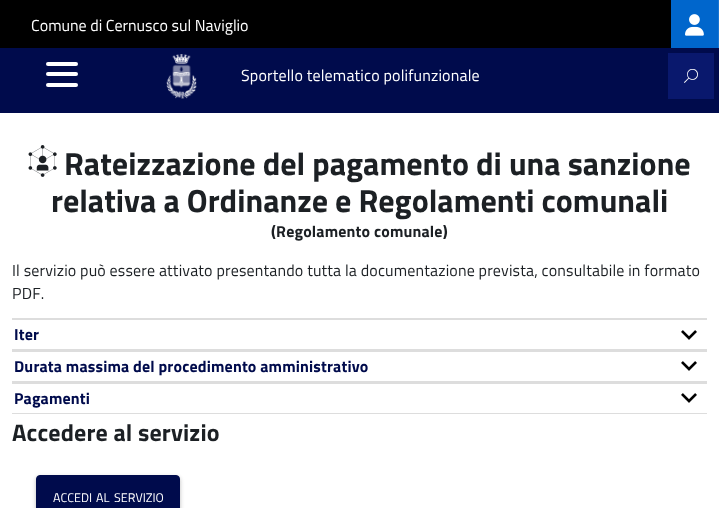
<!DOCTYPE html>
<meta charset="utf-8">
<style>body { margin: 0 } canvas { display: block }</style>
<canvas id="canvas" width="719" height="508"></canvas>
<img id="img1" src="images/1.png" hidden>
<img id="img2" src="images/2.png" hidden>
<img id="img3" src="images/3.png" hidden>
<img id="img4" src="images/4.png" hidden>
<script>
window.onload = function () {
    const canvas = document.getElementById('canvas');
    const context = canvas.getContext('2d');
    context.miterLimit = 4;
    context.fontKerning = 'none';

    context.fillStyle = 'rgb(255, 255, 255)';
    context.fillRect(0, 0, 719, 508);
    context.fillStyle = 'rgb(0, 0, 0)';
    context.fillRect(0, 0, 671, 48);
    context.fillStyle = 'rgb(0, 102, 204)';
    context.fillRect(671, 0, 47, 48);
    context.fillStyle = 'rgb(26, 117, 209)';
    context.fillRect(718, 0, 1, 48);
    context.drawImage(document.getElementById('img1'), 685, 14, 19, 22);
    context.fillStyle = 'rgb(0, 11, 76)';
    context.fillRect(0, 48, 719, 65);
    context.fillStyle = 'rgb(255, 255, 255)';
    context.beginPath();
    context.roundRect(46, 72, 32, 4, 2);
    context.fill();
    context.beginPath();
    context.roundRect(46, 62, 32, 4, 2);
    context.fill();
    context.beginPath();
    context.roundRect(46, 83, 32, 4, 2);
    context.fill();
    context.drawImage(document.getElementById('img2'), 166, 54, 31, 45);
    context.fillStyle = 'rgb(9, 24, 109)';
    context.fillRect(668, 53, 46, 46);
    context.drawImage(document.getElementById('img3'), 28, 145, 29, 32);
    context.fillStyle = 'rgb(221, 221, 221)';
    context.fillRect(12, 318, 695, 2);
    context.fillRect(12, 349, 695, 3);
    context.drawImage(document.getElementById('img4'), 681, 330, 16, 10);
    context.fillRect(12, 381, 695, 3);
    context.drawImage(document.getElementById('img4'), 681, 361, 16, 10);
    context.fillRect(12, 413, 695, 1);
    context.drawImage(document.getElementById('img4'), 681, 393, 16, 10);
    context.fillStyle = 'rgb(189, 189, 189)';
    context.filter = 'blur(2px)';
    context.beginPath();
    context.roundRect(36, 477, 144, 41, 4);
    context.fill();
    context.filter = 'none';
    context.fillStyle = 'rgb(0, 11, 76)';
    context.beginPath();
    context.roundRect(36.5, 475.5, 143, 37, 3.5);
    context.fill();
    context.strokeStyle = 'rgb(0, 11, 76)';
    context.stroke();
    context.font = '16px Titillium Web';
    context.fillStyle = 'rgb(255, 255, 255)';
    context.fillText('Comune di Cernusco sul Naviglio', 31, 31);
    context.letterSpacing = '0.16px';
    context.fillText('Sportello telematico polifunzionale', 241, 81);
    context.letterSpacing = '0px';
    context.font = '14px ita';
    context.fillText('🔍', 684, 82);
    context.font = 'bold 32px Titillium Web';
    context.fillStyle = 'rgb(28, 32, 36)';
    context.fillText('Rateizzazione del pagamento di una sanzione', 64, 175);
    context.fillText('relativa a Ordinanze e Regolamenti comunali', 51, 212);
    context.letterSpacing = '0.16px';
    context.font = 'bold 16px Titillium Web';
    context.fillText('(Regolamento comunale)', 271, 237);
    context.font = '16px Titillium Web';
    context.fillText('Il servizio può essere attivato presentando tutta la documentazione prevista, consultabile in formato', 12, 276);
    context.fillText('PDF.', 12, 299);
    context.font = 'bold 16px Titillium Web';
    context.fillStyle = 'rgb(0, 11, 76)';
    context.fillText('Iter', 14, 340);
    context.fillText('Durata massima del procedimento amministrativo', 14, 372);
    context.fillText('Pagamenti', 14, 404);
    context.font = 'bold 24px Titillium Web';
    context.fillStyle = 'rgb(28, 32, 36)';
    context.fillText('Accedere al servizio', 12, 441);
    context.letterSpacing = '0px';
    context.font = '12.5px Titillium Web';
    context.fillStyle = 'rgb(255, 255, 255)';
    context.fillText('ACCEDI', 53, 502);
    context.fillText('AL', 96, 502);
    context.fillText('SERVIZIO', 114, 502);
};
</script>
